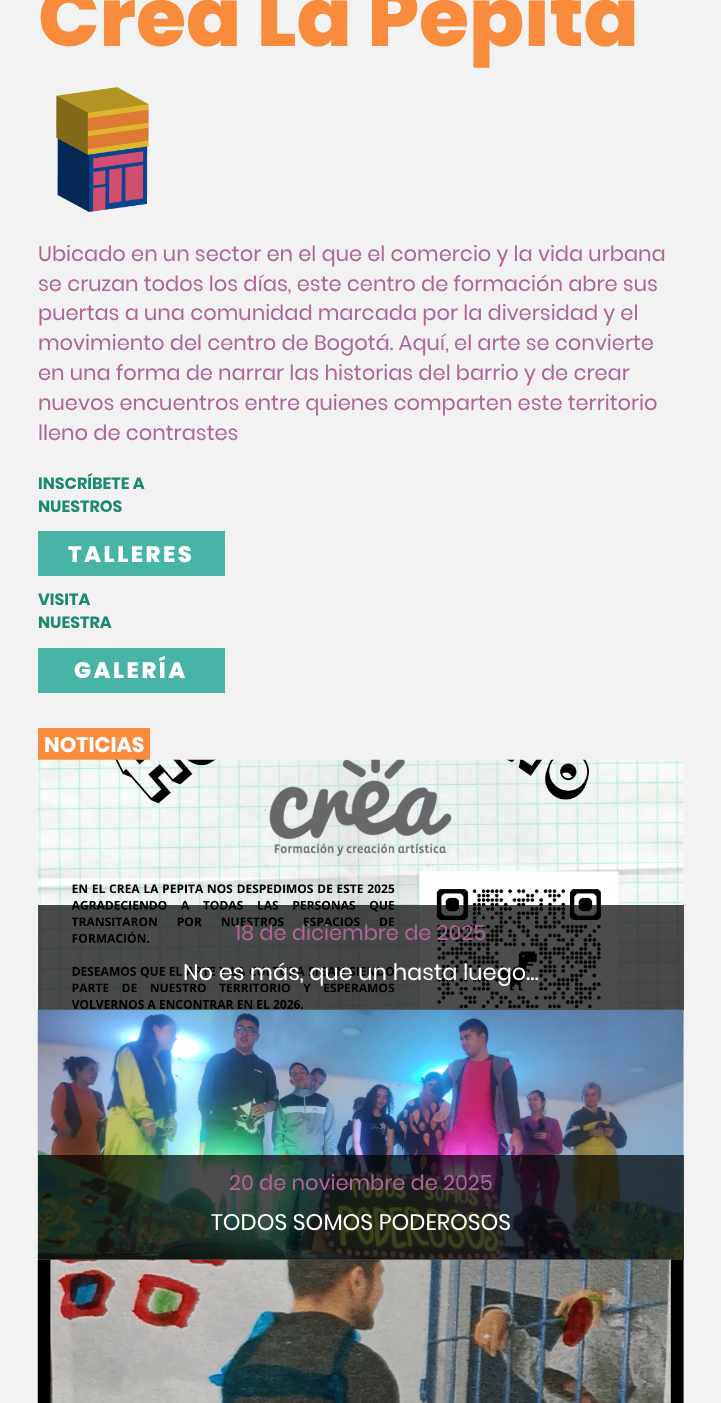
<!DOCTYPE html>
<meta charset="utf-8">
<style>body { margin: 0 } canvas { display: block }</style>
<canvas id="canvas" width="721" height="1403"></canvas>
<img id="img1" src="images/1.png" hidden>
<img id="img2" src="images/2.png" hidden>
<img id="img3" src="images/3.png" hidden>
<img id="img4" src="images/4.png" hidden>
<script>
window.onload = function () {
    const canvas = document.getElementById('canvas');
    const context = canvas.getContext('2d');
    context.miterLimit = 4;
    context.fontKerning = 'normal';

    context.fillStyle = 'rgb(242, 242, 242)';
    context.fillRect(0, 0, 721, 1403);
    context.drawImage(document.getElementById('img1'), 56, 87, 93, 125);
    context.fillStyle = 'rgb(71, 180, 165)';
    context.fillRect(38, 531, 187, 45);
    context.fillRect(38, 648, 187, 45);
    context.fillStyle = 'rgb(249, 140, 60)';
    context.fillRect(38, 728, 112, 32);
    context.drawImage(document.getElementById('img2'), 37, 759, 647, 251);
    context.fillStyle = 'rgba(0, 0, 0, 0.7)';
    context.fillRect(38, 905, 646, 105);
    context.drawImage(document.getElementById('img3'), 37, 1009, 647, 251);
    context.fillRect(38, 1155, 646, 105);
    context.drawImage(document.getElementById('img4'), 37, 1259, 647, 144);
    context.font = '800 81.25px Poppins';
    context.fillStyle = 'rgb(249, 140, 60)';
    context.fillText('Crea La Pepita', 38, 46);
    context.font = '21px Poppins';
    context.fillStyle = 'rgb(174, 102, 151)';
    context.fillText('Ubicado en un sector en el que el comercio y la vida urbana', 38, 261);
    context.fillText('se cruzan todos los días, este centro de formación abre sus', 38, 291);
    context.fillText('puertas a una comunidad marcada por la diversidad y el', 38, 320);
    context.fillText('movimiento del centro de Bogotá. Aquí, el arte se convierte', 38, 350);
    context.fillText('en una forma de narrar las historias del barrio y de crear', 38, 380);
    context.fillText('nuevos encuentros entre quienes comparten este territorio', 38, 410);
    context.fillText('lleno de contrastes', 38, 440);
    context.font = 'bold 16.25px Poppins';
    context.fillStyle = 'rgb(30, 137, 113)';
    context.fillText('INSCRÍBETE A', 38, 489);
    context.fillText('NUESTROS', 38, 512);
    context.letterSpacing = '2.5px';
    context.font = '800 22.5px Poppins';
    context.fillStyle = 'rgb(255, 255, 255)';
    context.fillText('TALLERES', 68, 562);
    context.letterSpacing = '0px';
    context.font = 'bold 16.25px Poppins';
    context.fillStyle = 'rgb(30, 137, 113)';
    context.fillText('VISITA', 38, 605);
    context.fillText('NUESTRA', 38, 628);
    context.letterSpacing = '2.5px';
    context.font = '800 22.5px Poppins';
    context.fillStyle = 'rgb(255, 255, 255)';
    context.fillText('GALERÍA', 74, 678);
    context.letterSpacing = '0px';
    context.font = 'bold 21px Poppins';
    context.fillText('NOTICIAS', 44, 752);
    context.font = '21px Poppins';
    context.fillStyle = 'rgb(174, 102, 151)';
    context.fillText('18 de diciembre de 2025', 235, 940);
    context.font = '22.5px Poppins';
    context.fillStyle = 'rgb(255, 255, 255)';
    context.fillText('No es más, que un hasta luego…', 183, 980);
    context.font = '21px Poppins';
    context.fillStyle = 'rgb(174, 102, 151)';
    context.fillText('20 de noviembre de 2025', 229, 1190);
    context.font = '22.5px Poppins';
    context.fillStyle = 'rgb(255, 255, 255)';
    context.fillText('TODOS SOMOS PODEROSOS', 211, 1230);
};
</script>
